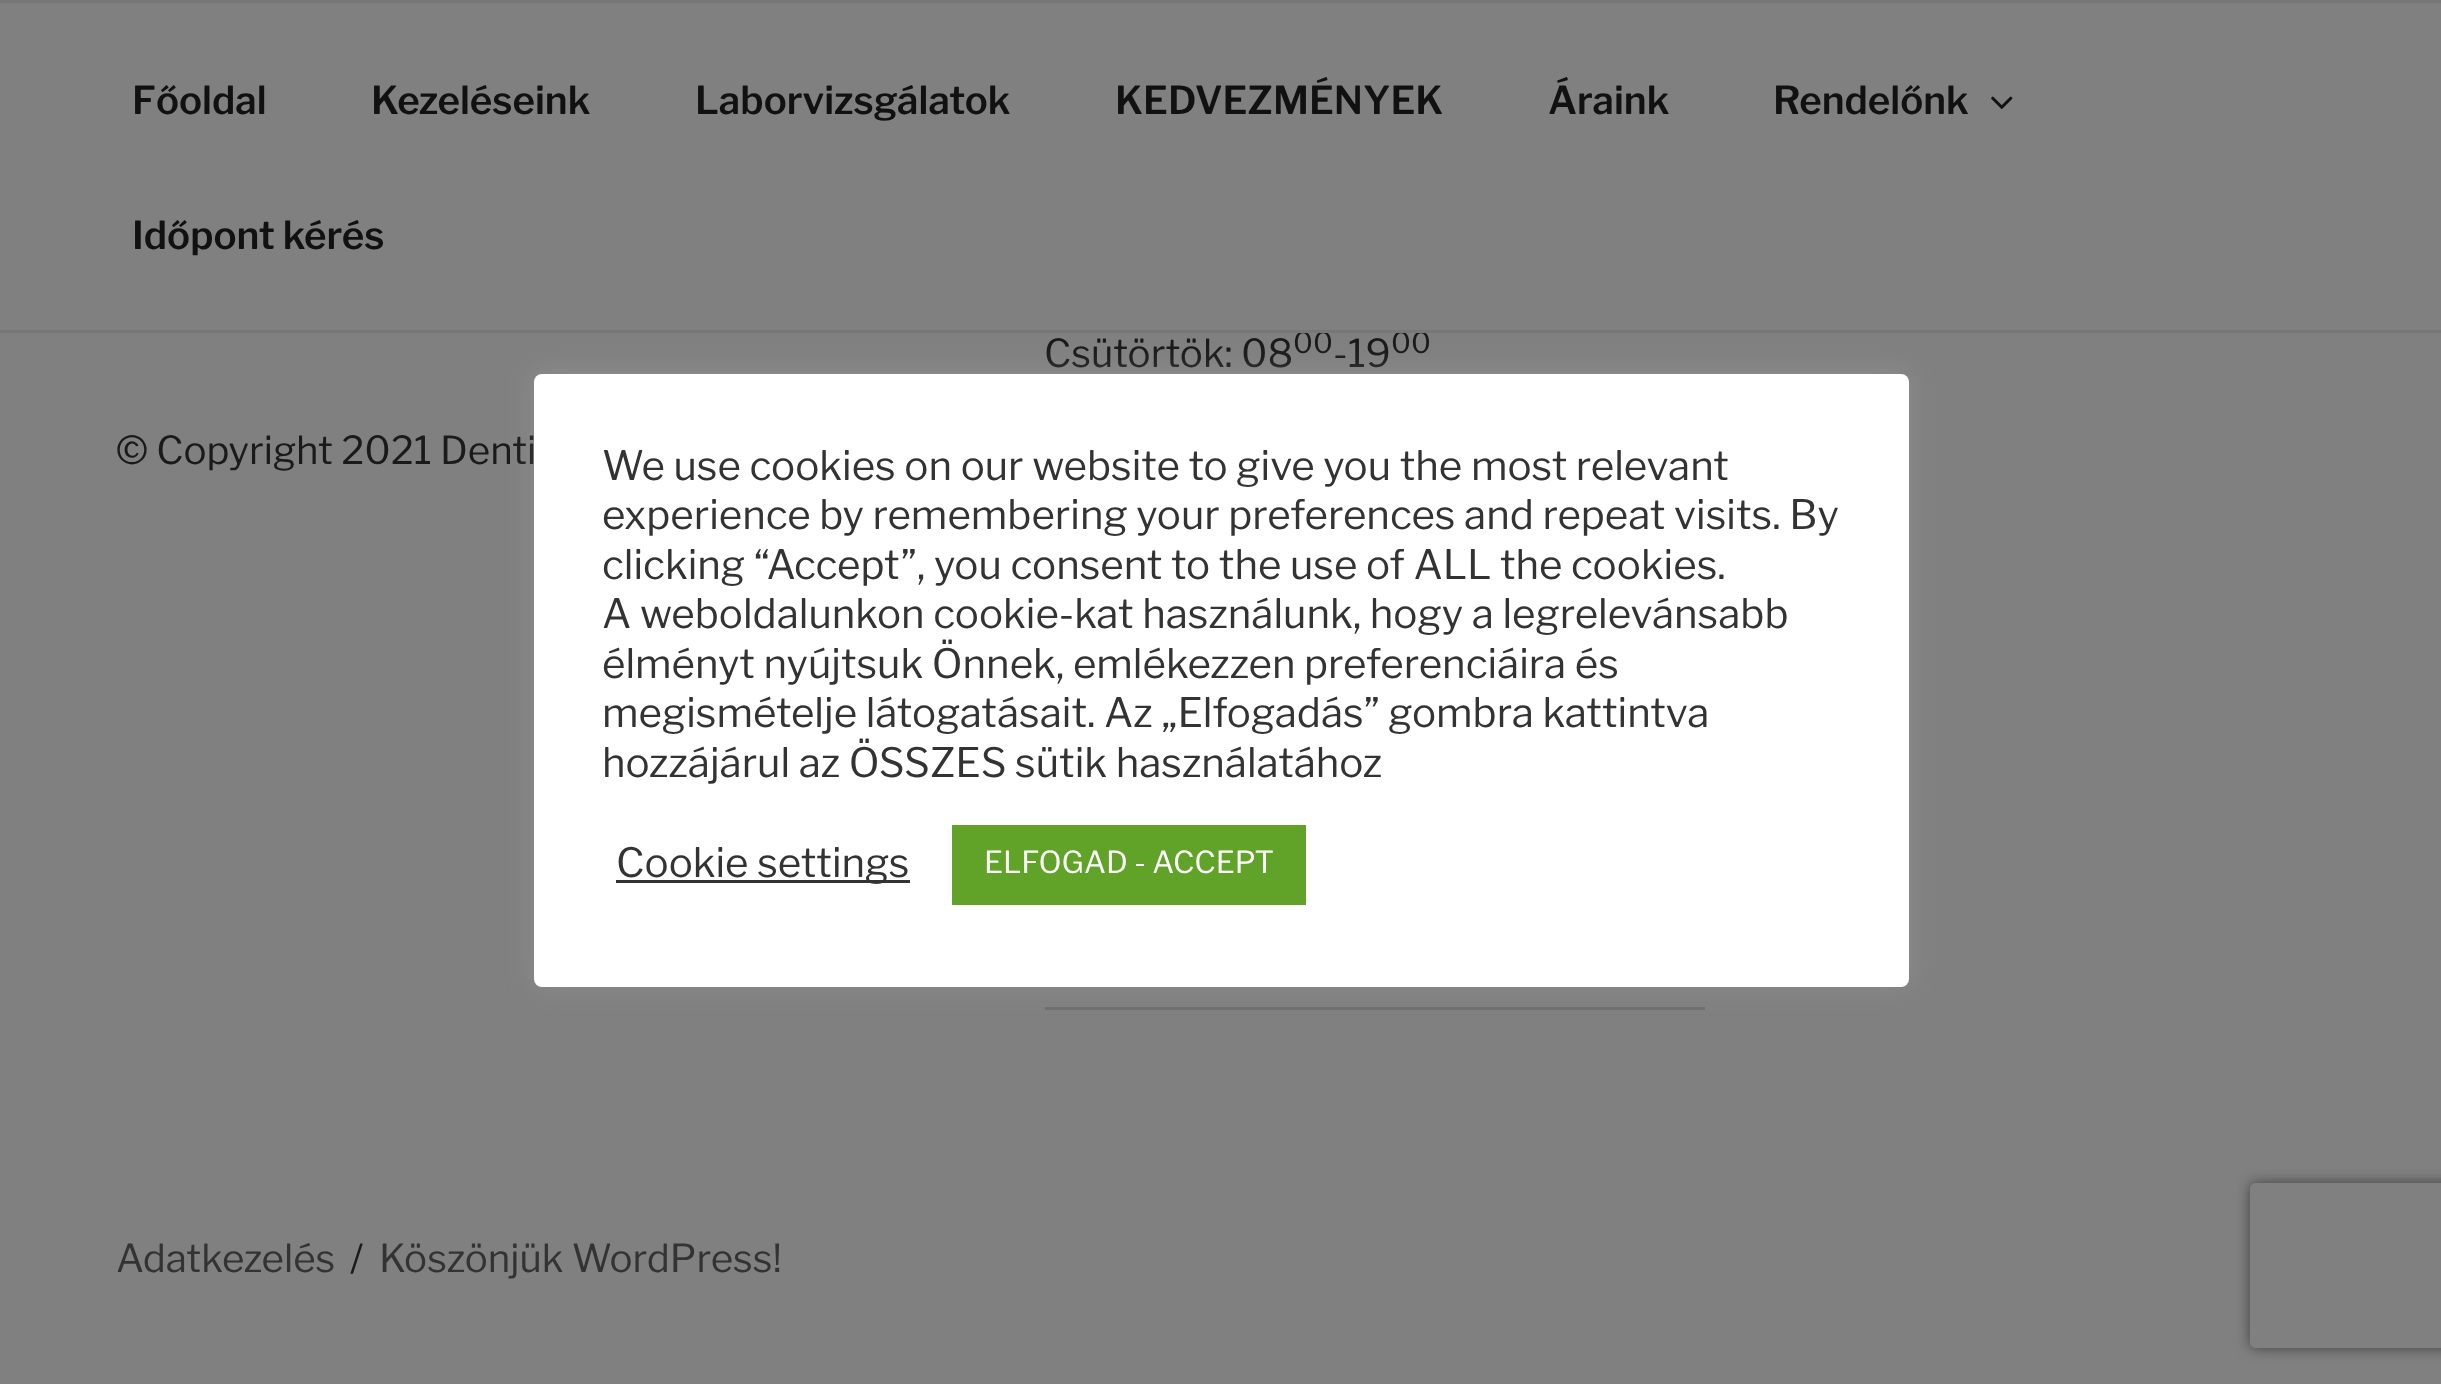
<!DOCTYPE html>
<meta charset="utf-8">
<style>body { margin: 0 } canvas { display: block }</style>
<canvas id="canvas" width="2441" height="1384"></canvas>
<img id="img1" src="images/1.png" hidden>
<script>
window.onload = function () {
    const canvas = document.getElementById('canvas');
    const context = canvas.getContext('2d');
    context.miterLimit = 4;
    context.fontKerning = 'normal';

    context.fillStyle = 'rgb(128, 128, 128)';
    context.fillRect(0, 0, 2441, 1384);
    context.fillStyle = 'rgb(119, 119, 119)';
    context.fillRect(0, 0, 2441, 3);
    context.drawImage(document.getElementById('img1'), 1991, 96, 22, 13);
    context.fillStyle = 'rgb(111, 111, 111)';
    context.fillRect(1045, 1007, 660, 3);
    context.save();
    context.beginPath();
    context.moveTo(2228, 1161);
    context.lineTo(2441, 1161);
    context.lineTo(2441, 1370);
    context.lineTo(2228, 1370);
    context.closePath();
    context.moveTo(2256, 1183);
    context.lineTo(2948, 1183);
    context.bezierCurveTo(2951.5, 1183, 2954, 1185.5, 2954, 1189);
    context.lineTo(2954, 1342);
    context.bezierCurveTo(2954, 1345.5, 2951.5, 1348, 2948, 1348);
    context.lineTo(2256, 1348);
    context.bezierCurveTo(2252.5, 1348, 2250, 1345.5, 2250, 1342);
    context.lineTo(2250, 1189);
    context.bezierCurveTo(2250, 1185.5, 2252.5, 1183, 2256, 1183);
    context.closePath();
    context.clip('evenodd');
    context.fillStyle = 'rgb(64, 64, 64)';
    context.filter = 'blur(7px)';
    context.beginPath();
    context.roundRect(2250, 1183, 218, 165, 6);
    context.fill();
    context.filter = 'none';
    context.restore();
    context.font = '100 38.5px "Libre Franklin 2"';
    context.fillStyle = 'rgb(17, 17, 17)';
    context.fillText('Főoldal', 132, 114);
    context.fillText('Kezeléseink', 371, 114);
    context.fillText('Laborvizsgálatok', 695, 114);
    context.fillText('KEDVEZMÉNYEK', 1115, 114);
    context.fillText('Áraink', 1548, 114);
    context.fillText('Rendelőnk', 1773, 114);
    context.fillText('Időpont kérés', 132, 249);
    context.font = '100 38.5px Libre Franklin';
    context.fillStyle = 'rgb(26, 26, 26)';
    context.fillText('Csütörtök: 08', 1044, 367);
    context.font = '100 29px Libre Franklin';
    context.fillText('00', 1293, 353);
    context.font = '100 38.5px Libre Franklin';
    context.fillText('-19', 1333, 367);
    context.font = '100 29px Libre Franklin';
    context.fillText('00', 1391, 353);
    context.fillStyle = 'rgb(119, 119, 119)';
    context.fillRect(0, 330, 2441, 3);
    context.font = '100 38.5px Libre Franklin';
    context.fillStyle = 'rgb(26, 26, 26)';
    context.fillText('© Copyright 2021 Denti', 116, 464);
    context.fillStyle = 'rgb(51, 51, 51)';
    context.fillText('Adatkezelés', 116, 1272);
    context.fillStyle = 'rgb(26, 26, 26)';
    context.fillText('/', 350, 1272);
    context.fillStyle = 'rgb(51, 51, 51)';
    context.fillText('Köszönjük WordPress!', 379, 1272);
    context.fillStyle = 'rgba(172, 171, 171, 0.3)';
    context.filter = 'blur(14px)';
    context.beginPath();
    context.roundRect(534, 371, 1375, 614, 8);
    context.fill();
    context.filter = 'none';
    context.fillStyle = 'rgb(255, 255, 255)';
    context.beginPath();
    context.roundRect(534, 374, 1375, 613, 8);
    context.fill();
    context.font = '100 40.3px Libre Franklin';
    context.fillStyle = 'rgb(51, 51, 51)';
    context.fillText('We use cookies on our website to give you the most relevant', 602, 480);
    context.fillText('experience by remembering your preferences and repeat visits. By', 602, 529);
    context.fillText('clicking “Accept”, you consent to the use of ALL the cookies.', 602, 579);
    context.fillText('A weboldalunkon cookie-kat használunk, hogy a legrelevánsabb', 602, 628);
    context.fillText('élményt nyújtsuk Önnek, emlékezzen preferenciáira és', 602, 678);
    context.fillText('megismételje látogatásait. Az „Elfogadás” gombra kattintva', 602, 727);
    context.fillText('hozzájárul az ÖSSZES sütik használatához', 602, 777);
    context.fillRect(616, 880, 294, 3);
    context.fillText('Cookie settings', 616, 877);
    context.fillStyle = 'rgb(97, 162, 41)';
    context.fillRect(952, 825, 354, 80);
    context.font = '100 30.25px Libre Franklin';
    context.fillStyle = 'rgb(255, 255, 255)';
    context.fillText('ELFOGAD - ACCEPT', 984, 873);
};
</script>
